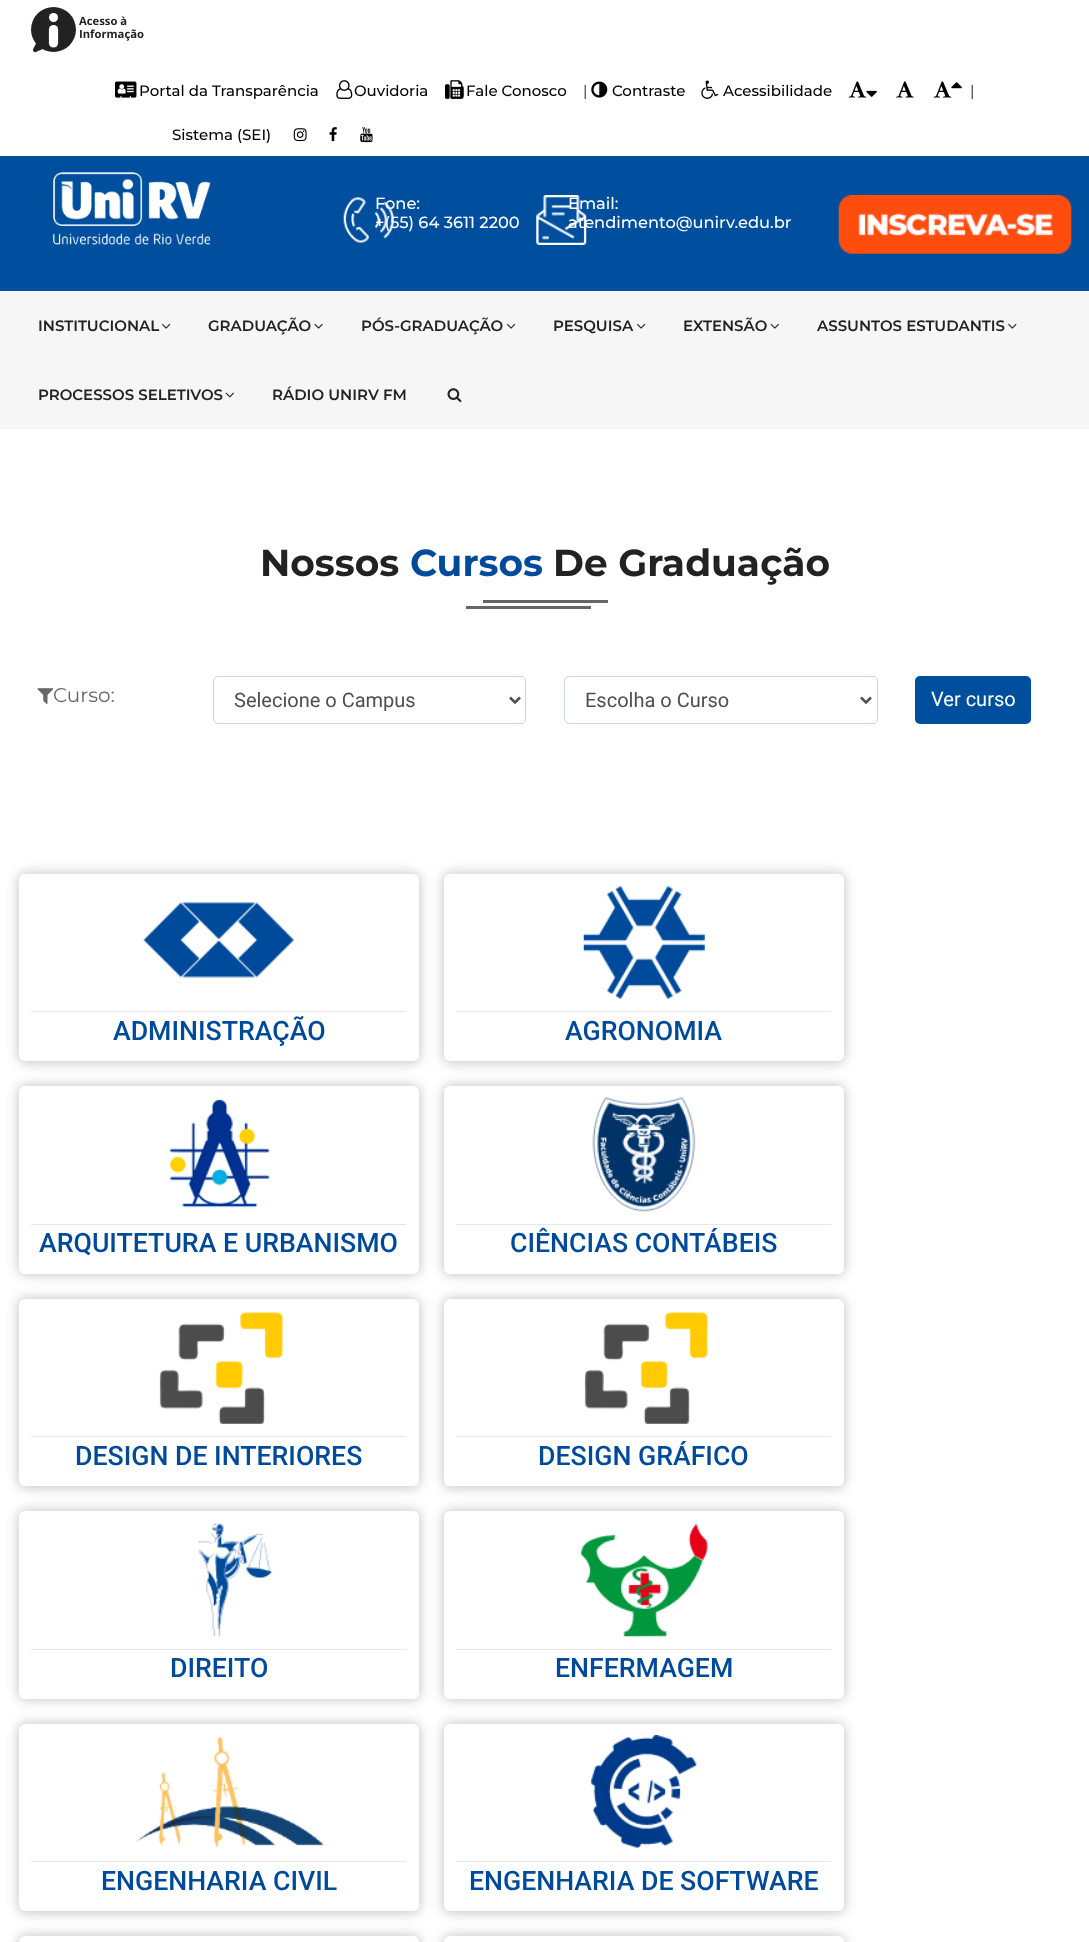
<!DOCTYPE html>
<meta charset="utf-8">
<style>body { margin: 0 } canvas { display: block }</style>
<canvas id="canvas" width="1089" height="1942"></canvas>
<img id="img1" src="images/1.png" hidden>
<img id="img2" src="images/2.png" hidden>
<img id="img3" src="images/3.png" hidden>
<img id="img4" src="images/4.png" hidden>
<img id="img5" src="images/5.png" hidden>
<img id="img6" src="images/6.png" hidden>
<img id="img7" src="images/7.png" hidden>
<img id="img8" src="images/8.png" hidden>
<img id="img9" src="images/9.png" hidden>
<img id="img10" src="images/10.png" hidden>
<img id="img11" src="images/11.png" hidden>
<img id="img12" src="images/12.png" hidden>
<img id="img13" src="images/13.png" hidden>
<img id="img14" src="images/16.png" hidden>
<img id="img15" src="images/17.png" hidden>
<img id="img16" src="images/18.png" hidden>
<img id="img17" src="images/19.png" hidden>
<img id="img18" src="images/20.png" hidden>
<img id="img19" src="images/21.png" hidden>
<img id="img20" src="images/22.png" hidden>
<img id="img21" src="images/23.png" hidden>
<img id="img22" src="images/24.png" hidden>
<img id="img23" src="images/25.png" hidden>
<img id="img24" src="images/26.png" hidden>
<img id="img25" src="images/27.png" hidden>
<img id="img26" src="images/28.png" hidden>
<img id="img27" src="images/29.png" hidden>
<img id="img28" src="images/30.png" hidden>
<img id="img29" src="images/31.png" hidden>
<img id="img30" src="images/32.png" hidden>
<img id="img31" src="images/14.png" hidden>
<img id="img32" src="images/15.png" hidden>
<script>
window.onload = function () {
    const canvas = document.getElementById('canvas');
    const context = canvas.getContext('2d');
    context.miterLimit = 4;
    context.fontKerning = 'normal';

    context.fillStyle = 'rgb(255, 255, 255)';
    context.fillRect(0, 0, 1089, 1942);
    context.fillStyle = 'rgb(0, 79, 159)';
    context.fillRect(0, 156, 1089, 135);
    context.fillStyle = 'rgb(34, 34, 34)';
    context.beginPath();
    context.arc(53.5, 29.5, 22.5, 0, 2 * Math.PI);
    context.fill();
    context.fillStyle = 'rgb(255, 255, 255)';
    context.beginPath();
    context.arc(53.5, 17.5, 4.5, 0, 2 * Math.PI);
    context.fill();
    context.beginPath();
    context.moveTo(53.5, 29.5);
    context.lineTo(53.5, 43);
    context.strokeStyle = 'rgb(255, 255, 255)';
    context.lineWidth = 9.2;
    context.lineCap = 'round';
    context.stroke();
    context.beginPath();
    context.moveTo(35, 50);
    context.lineTo(38, 44);
    context.lineTo(42, 47);
    context.closePath();
    context.strokeStyle = 'rgb(34, 34, 34)';
    context.lineWidth = 4.1;
    context.lineCap = 'butt';
    context.lineJoin = 'round';
    context.stroke();
    context.drawImage(document.getElementById('img1'), 115, 81, 22, 17);
    context.drawImage(document.getElementById('img2'), 336, 80, 17, 19);
    context.drawImage(document.getElementById('img3'), 445, 80, 19, 19);
    context.drawImage(document.getElementById('img4'), 591, 81, 17, 17);
    context.drawImage(document.getElementById('img5'), 701, 80, 18, 19);
    context.drawImage(document.getElementById('img6'), 848, 81, 19, 17);
    context.drawImage(document.getElementById('img7'), 866, 90, 11, 7);
    context.drawImage(document.getElementById('img8'), 896, 81, 18, 17);
    context.drawImage(document.getElementById('img6'), 933, 81, 19, 17);
    context.drawImage(document.getElementById('img9'), 951, 82, 11, 7);
    context.drawImage(document.getElementById('img10'), 293, 128, 14, 14);
    context.drawImage(document.getElementById('img11'), 329, 127, 8, 15);
    context.drawImage(document.getElementById('img12'), 360, 127, 13, 16);
    context.drawImage(document.getElementById('img13'), 53, 172, 158, 73);
    context.drawImage(document.getElementById('img14'), 838, 195, 234, 59);
    context.fillStyle = 'rgb(246, 246, 246)';
    context.fillRect(0, 291, 1089, 138);
    context.drawImage(document.getElementById('img15'), 161, 323, 10, 6);
    context.drawImage(document.getElementById('img16'), 314, 323, 9, 6);
    context.drawImage(document.getElementById('img15'), 506, 323, 10, 6);
    context.drawImage(document.getElementById('img15'), 636, 323, 10, 6);
    context.drawImage(document.getElementById('img17'), 770, 323, 9, 6);
    context.drawImage(document.getElementById('img18'), 1008, 323, 9, 6);
    context.drawImage(document.getElementById('img19'), 225, 392, 9, 6);
    context.drawImage(document.getElementById('img20'), 447, 388, 15, 15);
    context.fillStyle = 'rgb(102, 102, 102)';
    context.fillRect(483, 600, 125, 3);
    context.fillRect(466, 606, 125, 3);
    context.drawImage(document.getElementById('img21'), 37, 688, 17, 16);
    context.beginPath();
    context.roundRect(213.5, 676.5, 312, 47, 4.5);
    context.strokeStyle = 'rgb(206, 212, 218)';
    context.lineWidth = 1;
    context.lineJoin = 'miter';
    context.stroke();
    context.beginPath();
    context.moveTo(510, 697.5);
    context.lineTo(515, 702.5);
    context.lineTo(520, 697.5);
    context.strokeStyle = 'rgb(73, 80, 87)';
    context.lineWidth = 2.5;
    context.stroke();
    context.beginPath();
    context.roundRect(564.5, 676.5, 313, 47, 4.5);
    context.strokeStyle = 'rgb(206, 212, 218)';
    context.lineWidth = 1;
    context.stroke();
    context.beginPath();
    context.moveTo(861, 697.5);
    context.lineTo(866, 702.5);
    context.lineTo(871, 697.5);
    context.strokeStyle = 'rgb(73, 80, 87)';
    context.lineWidth = 2.5;
    context.stroke();
    context.fillStyle = 'rgb(0, 79, 159)';
    context.beginPath();
    context.roundRect(915, 676, 116, 48, 5);
    context.fill();
    context.fillStyle = 'rgb(198, 198, 198)';
    context.filter = 'blur(6px)';
    context.beginPath();
    context.roundRect(18, 873, 402, 190, 8);
    context.fill();
    context.filter = 'none';
    context.fillStyle = 'rgb(255, 255, 255)';
    context.beginPath();
    context.roundRect(19, 874, 400, 187, 6);
    context.fill();
    context.drawImage(document.getElementById('img22'), 143, 902, 151, 76);
    context.fillStyle = 'rgb(230, 230, 230)';
    context.fillRect(31, 1011, 375, 1);
    context.fillStyle = 'rgb(198, 198, 198)';
    context.filter = 'blur(6px)';
    context.beginPath();
    context.roundRect(443, 873, 402, 190, 8);
    context.fill();
    context.filter = 'none';
    context.fillStyle = 'rgb(255, 255, 255)';
    context.beginPath();
    context.roundRect(444, 874, 400, 187, 6);
    context.fill();
    context.drawImage(document.getElementById('img23'), 583, 886, 122, 113);
    context.fillStyle = 'rgb(230, 230, 230)';
    context.fillRect(456, 1011, 375, 1);
    context.fillStyle = 'rgb(198, 198, 198)';
    context.filter = 'blur(6px)';
    context.beginPath();
    context.roundRect(18, 1085, 402, 190, 8);
    context.fill();
    context.filter = 'none';
    context.fillStyle = 'rgb(255, 255, 255)';
    context.beginPath();
    context.roundRect(19, 1086, 400, 188, 6);
    context.fill();
    context.drawImage(document.getElementById('img24'), 169, 1098, 101, 110);
    context.fillStyle = 'rgb(230, 230, 230)';
    context.fillRect(31, 1224, 375, 1);
    context.fillStyle = 'rgb(198, 198, 198)';
    context.filter = 'blur(6px)';
    context.beginPath();
    context.roundRect(443, 1085, 402, 190, 8);
    context.fill();
    context.filter = 'none';
    context.fillStyle = 'rgb(255, 255, 255)';
    context.beginPath();
    context.roundRect(444, 1086, 400, 188, 6);
    context.fill();
    context.drawImage(document.getElementById('img25'), 592, 1097, 104, 115);
    context.fillStyle = 'rgb(230, 230, 230)';
    context.fillRect(456, 1224, 375, 1);
    context.fillStyle = 'rgb(198, 198, 198)';
    context.filter = 'blur(6px)';
    context.beginPath();
    context.roundRect(18, 1298, 402, 190, 8);
    context.fill();
    context.filter = 'none';
    context.fillStyle = 'rgb(255, 255, 255)';
    context.beginPath();
    context.roundRect(19, 1299, 400, 187, 6);
    context.fill();
    context.drawImage(document.getElementById('img26'), 159, 1312, 124, 112);
    context.fillStyle = 'rgb(230, 230, 230)';
    context.fillRect(31, 1436, 375, 1);
    context.fillStyle = 'rgb(198, 198, 198)';
    context.filter = 'blur(6px)';
    context.beginPath();
    context.roundRect(443, 1298, 402, 190, 8);
    context.fill();
    context.filter = 'none';
    context.fillStyle = 'rgb(255, 255, 255)';
    context.beginPath();
    context.roundRect(444, 1299, 400, 187, 6);
    context.fill();
    context.drawImage(document.getElementById('img26'), 584, 1312, 124, 112);
    context.fillStyle = 'rgb(230, 230, 230)';
    context.fillRect(456, 1436, 375, 1);
    context.fillStyle = 'rgb(198, 198, 198)';
    context.filter = 'blur(6px)';
    context.beginPath();
    context.roundRect(18, 1510, 402, 190, 8);
    context.fill();
    context.filter = 'none';
    context.fillStyle = 'rgb(255, 255, 255)';
    context.beginPath();
    context.roundRect(19, 1511, 400, 188, 6);
    context.fill();
    context.drawImage(document.getElementById('img27'), 198, 1523, 74, 114);
    context.fillStyle = 'rgb(230, 230, 230)';
    context.fillRect(31, 1649, 375, 1);
    context.fillStyle = 'rgb(198, 198, 198)';
    context.filter = 'blur(6px)';
    context.beginPath();
    context.roundRect(443, 1510, 402, 190, 8);
    context.fill();
    context.filter = 'none';
    context.fillStyle = 'rgb(255, 255, 255)';
    context.beginPath();
    context.roundRect(444, 1511, 400, 188, 6);
    context.fill();
    context.drawImage(document.getElementById('img28'), 581, 1523, 127, 114);
    context.fillStyle = 'rgb(230, 230, 230)';
    context.fillRect(456, 1649, 375, 1);
    context.fillStyle = 'rgb(198, 198, 198)';
    context.filter = 'blur(6px)';
    context.beginPath();
    context.roundRect(18, 1723, 402, 190, 8);
    context.fill();
    context.filter = 'none';
    context.fillStyle = 'rgb(255, 255, 255)';
    context.beginPath();
    context.roundRect(19, 1724, 400, 187, 6);
    context.fill();
    context.drawImage(document.getElementById('img29'), 136, 1736, 188, 113);
    context.fillStyle = 'rgb(230, 230, 230)';
    context.fillRect(31, 1861, 375, 1);
    context.fillStyle = 'rgb(198, 198, 198)';
    context.filter = 'blur(6px)';
    context.beginPath();
    context.roundRect(443, 1723, 402, 190, 8);
    context.fill();
    context.filter = 'none';
    context.fillStyle = 'rgb(255, 255, 255)';
    context.beginPath();
    context.roundRect(444, 1724, 400, 187, 6);
    context.fill();
    context.drawImage(document.getElementById('img30'), 590, 1735, 107, 113);
    context.fillStyle = 'rgb(230, 230, 230)';
    context.fillRect(456, 1861, 375, 1);
    context.fillStyle = 'rgb(198, 198, 198)';
    context.filter = 'blur(6px)';
    context.beginPath();
    context.roundRect(18, 1935, 402, 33, 8);
    context.fill();
    context.filter = 'none';
    context.fillStyle = 'rgb(255, 255, 255)';
    context.beginPath();
    context.roundRect(19, 1936, 400, 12, 6);
    context.fill();
    context.fillStyle = 'rgb(198, 198, 198)';
    context.filter = 'blur(6px)';
    context.beginPath();
    context.roundRect(443, 1935, 402, 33, 8);
    context.fill();
    context.filter = 'none';
    context.fillStyle = 'rgb(255, 255, 255)';
    context.beginPath();
    context.roundRect(444, 1936, 400, 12, 6);
    context.fill();
    context.font = 'bold 11.25px Open Sans';
    context.fillStyle = 'rgb(34, 34, 34)';
    context.fillText('Acesso à', 79, 25);
    context.fillText('Informação', 79, 38);
    context.font = '500 15px Montserrat';
    context.fillStyle = 'rgb(0, 0, 0)';
    context.fillText('Portal da Transparência', 139, 96);
    context.fillText('Ouvidoria', 354, 96);
    context.fillText('Fale Conosco', 466, 96);
    context.font = '15px Montserrat';
    context.fillStyle = 'rgb(34, 34, 34)';
    context.fillText('|', 583, 96);
    context.font = '500 15px Montserrat';
    context.fillStyle = 'rgb(0, 0, 0)';
    context.fillText('Contraste', 612, 96);
    context.fillText('Acessibilidade', 723, 96);
    context.font = '15px Montserrat';
    context.fillStyle = 'rgb(34, 34, 34)';
    context.fillText('|', 970, 96);
    context.font = '500 15px Montserrat';
    context.fillStyle = 'rgb(0, 0, 0)';
    context.fillText('Sistema (SEI)', 172, 140);
    context.font = '500 16.25px Montserrat';
    context.fillStyle = 'rgb(255, 255, 255)';
    context.fillText('Fone:', 375, 209);
    context.fillText('+(55) 64 3611 2200', 375, 228);
    context.drawImage(document.getElementById('img31'), 343, 197, 51, 46);
    context.fillText('Email:', 568, 209);
    context.fillText('atendimento@unirv.edu.br', 568, 228);
    context.drawImage(document.getElementById('img32'), 536, 195, 51, 50);
    context.font = '600 15px Montserrat';
    context.fillStyle = 'rgb(34, 34, 34)';
    context.fillText('INSTITUCIONAL', 38, 331);
    context.fillText('GRADUAÇÃO', 208, 331);
    context.fillText('PÓS-GRADUAÇÃO', 361, 331);
    context.fillText('PESQUISA', 553, 331);
    context.fillText('EXTENSÃO', 683, 331);
    context.fillText('ASSUNTOS ESTUDANTIS', 817, 331);
    context.fillText('PROCESSOS SELETIVOS', 38, 400);
    context.fillText('RÁDIO UNIRV FM', 272, 400);
    context.font = 'bold 37.5px Montserrat';
    context.fillText('Nossos', 260, 576);
    context.fillStyle = 'rgb(0, 74, 156)';
    context.fillText('Cursos', 410, 576);
    context.fillStyle = 'rgb(34, 34, 34)';
    context.fillText('De Graduação', 553, 576);
    context.font = '20px Montserrat';
    context.fillStyle = 'rgb(102, 102, 102)';
    context.fillText('Curso:', 53, 702);
    context.font = '20px Roboto';
    context.fillStyle = 'rgb(73, 80, 87)';
    context.fillText('Selecione o Campus', 234, 707);
    context.fillText('Escolha o Curso', 585, 707);
    context.fillStyle = 'rgb(255, 255, 255)';
    context.fillText('Ver curso', 931, 706);
    context.font = '500 26.7px Roboto';
    context.fillStyle = 'rgb(0, 74, 156)';
    context.fillText('ADMINISTRAÇÃO', 113, 1040);
    context.fillText('AGRONOMIA', 565, 1040);
    context.fillText('ARQUITETURA E URBANISMO', 39, 1252);
    context.fillText('CIÊNCIAS CONTÁBEIS', 510, 1252);
    context.fillText('DESIGN DE INTERIORES', 75, 1465);
    context.fillText('DESIGN GRÁFICO', 538, 1465);
    context.fillText('DIREITO', 170, 1677);
    context.fillText('ENFERMAGEM', 555, 1677);
    context.fillText('ENGENHARIA CIVIL', 101, 1890);
    context.fillText('ENGENHARIA DE SOFTWARE', 469, 1890);
};
</script>
